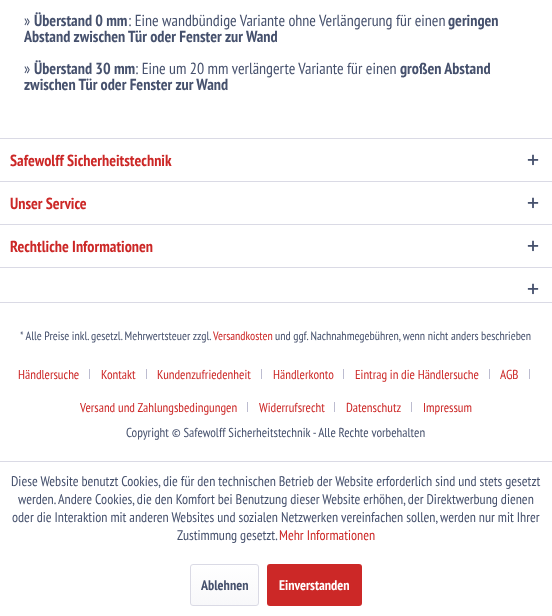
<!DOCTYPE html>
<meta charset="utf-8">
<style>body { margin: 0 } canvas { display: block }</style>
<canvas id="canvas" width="552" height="616"></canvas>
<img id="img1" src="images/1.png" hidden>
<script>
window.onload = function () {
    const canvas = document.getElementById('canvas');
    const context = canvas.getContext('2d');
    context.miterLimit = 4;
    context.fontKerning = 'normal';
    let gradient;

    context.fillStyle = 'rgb(255, 255, 255)';
    context.fillRect(0, 0, 552, 616);
    context.fillStyle = 'rgb(218, 218, 229)';
    context.fillRect(0, 138, 552, 1);
    context.drawImage(document.getElementById('img1'), 527, 154, 12, 12);
    context.fillRect(0, 181, 552, 1);
    context.drawImage(document.getElementById('img1'), 527, 197, 12, 12);
    context.fillRect(0, 224, 552, 1);
    context.drawImage(document.getElementById('img1'), 527, 240, 12, 12);
    context.fillRect(0, 267, 552, 1);
    context.fillRect(0, 302, 552, 1);
    context.drawImage(document.getElementById('img1'), 527, 283, 12, 12);
    context.fillStyle = 'rgb(188, 188, 208)';
    context.fillRect(89, 369, 1, 10);
    context.fillRect(146, 369, 1, 10);
    context.fillRect(261, 369, 1, 10);
    context.fillRect(343, 369, 1, 10);
    context.fillRect(489, 369, 1, 10);
    context.fillRect(529, 369, 1, 10);
    context.fillRect(247, 402, 1, 10);
    context.fillRect(334, 402, 1, 10);
    context.fillRect(411, 402, 1, 10);
    context.fillStyle = 'rgb(218, 218, 229)';
    context.fillRect(0, 461, 552, 1);
    gradient = context.createLinearGradient(225, 565, 225, 605);
    gradient.addColorStop(0, 'rgb(255, 255, 255)');
    gradient.addColorStop(1, 'rgb(248, 248, 250)');
    context.fillStyle = gradient;
    context.beginPath();
    context.roundRect(191, 565, 67, 40, 2);
    context.fill();
    context.beginPath();
    context.roundRect(190.5, 564.5, 68, 41, 2.5);
    context.strokeStyle = 'rgb(218, 218, 229)';
    context.stroke();
    context.fillStyle = 'rgb(204, 40, 39)';
    context.beginPath();
    context.roundRect(267, 564, 95, 42, 3);
    context.fill();
    context.font = '16px PT Sans Narrow';
    context.fillStyle = 'rgb(70, 81, 109)';
    context.fillText('»', 24, 26);
    context.font = 'bold 16px PT Sans Narrow';
    context.fillText('Überstand 0 mm', 34, 26);
    context.font = '16px PT Sans Narrow';
    context.fillText(': Eine wandbündige Variante ohne Verlängerung für einen', 128, 26);
    context.font = 'bold 16px PT Sans Narrow';
    context.fillText('geringen', 448, 26);
    context.fillText('Abstand zwischen Tür oder Fenster zur Wand', 24, 42);
    context.font = '16px PT Sans Narrow';
    context.fillText('»', 24, 74);
    context.font = 'bold 16px PT Sans Narrow';
    context.fillText('Überstand 30 mm', 34, 74);
    context.font = '16px PT Sans Narrow';
    context.fillText(': Eine um 20 mm verlängerte Variante für einen', 135, 74);
    context.font = 'bold 16px PT Sans Narrow';
    context.fillText('großen Abstand', 400, 74);
    context.fillText('zwischen Tür oder Fenster zur Wand', 24, 90);
    context.fillStyle = 'rgb(204, 40, 39)';
    context.fillText('Safewolff Sicherheitstechnik', 10, 166);
    context.fillText('Unser Service', 10, 209);
    context.fillText('Rechtliche Informationen', 10, 252);
    context.font = '12px PT Sans Narrow';
    context.fillStyle = 'rgb(70, 81, 109)';
    context.fillText('* Alle Preise inkl. gesetzl. Mehrwertsteuer zzgl.', 20, 340);
    context.fillStyle = 'rgb(204, 40, 39)';
    context.fillText('Versandkosten', 213, 340);
    context.fillStyle = 'rgb(70, 81, 109)';
    context.fillText('und ggf. Nachnahmegebühren, wenn nicht anders beschrieben', 275, 340);
    context.font = '13px PT Sans Narrow';
    context.fillStyle = 'rgb(204, 40, 39)';
    context.fillText('Händlersuche', 18, 379);
    context.fillText('Kontakt', 101, 379);
    context.fillText('Kundenzufriedenheit', 157, 379);
    context.fillText('Händlerkonto', 273, 379);
    context.fillText('Eintrag in die Händlersuche', 355, 379);
    context.fillText('AGB', 500, 379);
    context.fillText('Versand und Zahlungsbedingungen', 80, 412);
    context.fillText('Widerrufsrecht', 259, 412);
    context.fillText('Datenschutz', 346, 412);
    context.fillText('Impressum', 423, 412);
    context.fillStyle = 'rgb(70, 81, 109)';
    context.fillText('Copyright © Safewolff Sicherheitstechnik - Alle Rechte vorbehalten', 126, 437);
    context.font = '14px PT Sans Narrow';
    context.fillText('Diese Website benutzt Cookies, die für den technischen Betrieb der Website erforderlich sind und stets gesetzt', 11, 486);
    context.fillText('werden. Andere Cookies, die den Komfort bei Benutzung dieser Website erhöhen, der Direktwerbung dienen', 18, 504);
    context.fillText('oder die Interaktion mit anderen Websites und sozialen Netzwerken vereinfachen sollen, werden nur mit Ihrer', 12, 522);
    context.fillText('Zustimmung gesetzt.', 177, 540);
    context.fillStyle = 'rgb(204, 40, 39)';
    context.fillText('Mehr Informationen', 279, 540);
    context.font = 'bold 14px PT Sans Narrow';
    context.fillStyle = 'rgb(70, 81, 109)';
    context.fillText('Ablehnen', 201, 590);
    context.fillStyle = 'rgb(255, 255, 255)';
    context.fillText('Einverstanden', 279, 590);
};
</script>
